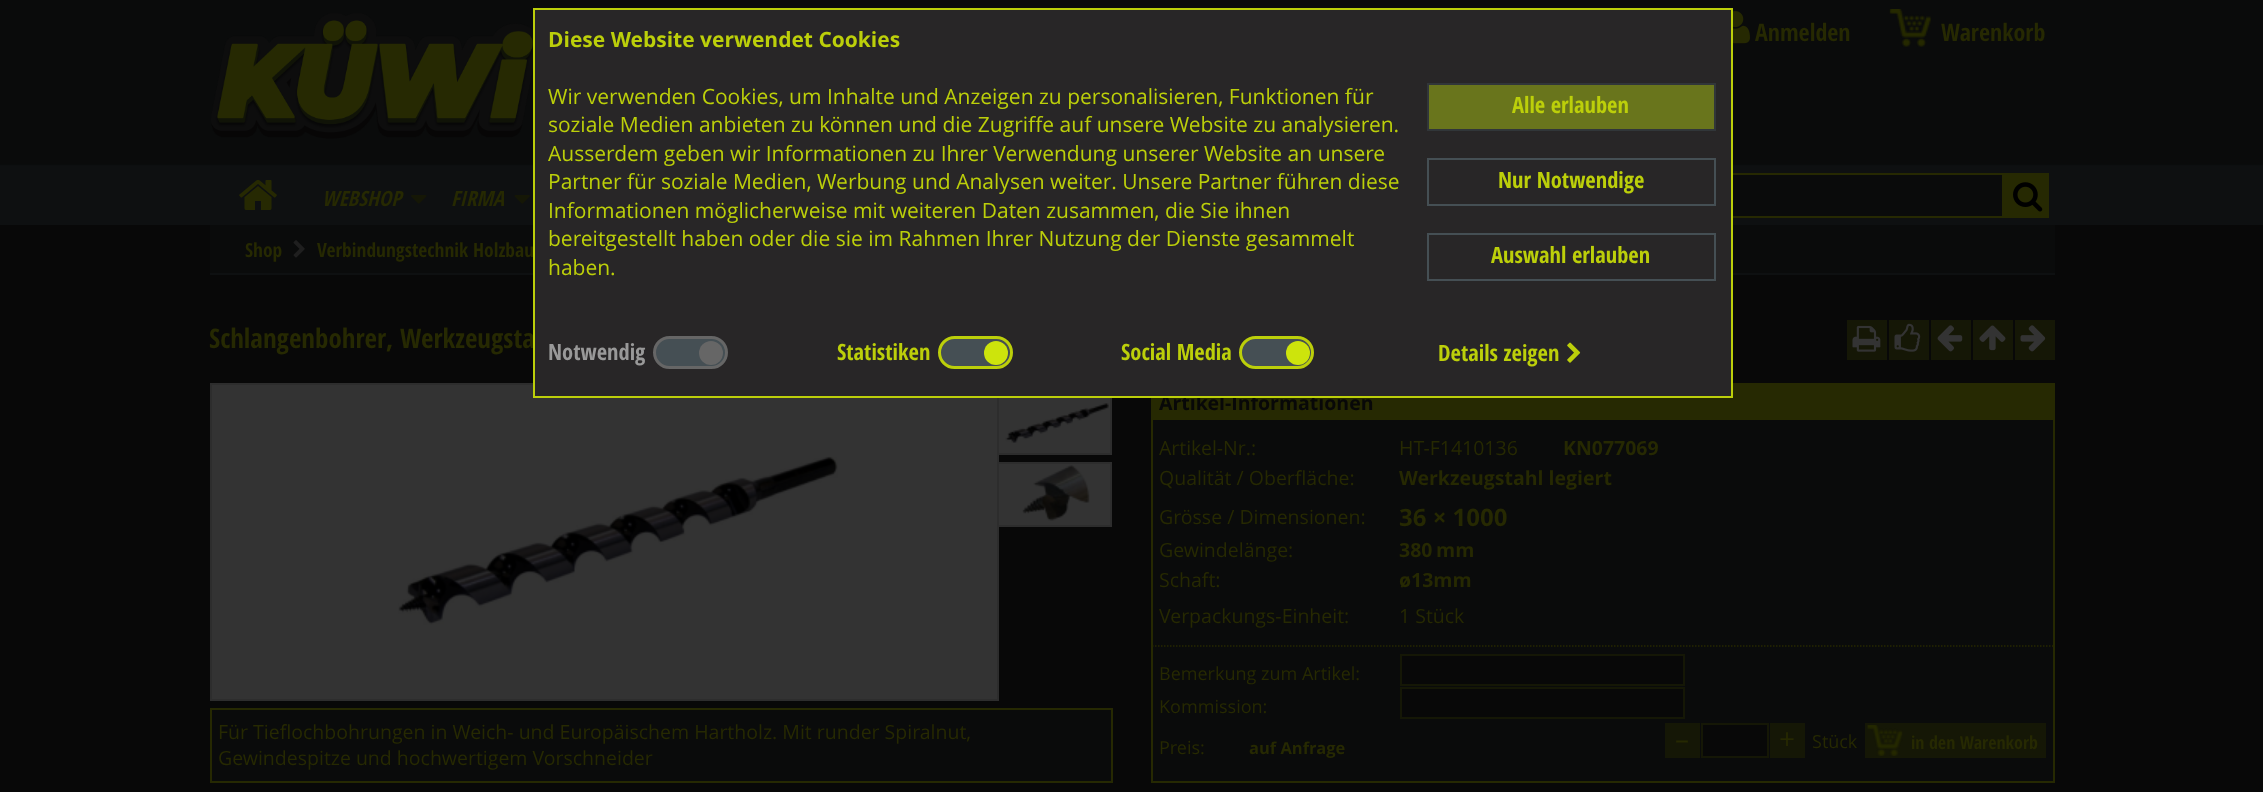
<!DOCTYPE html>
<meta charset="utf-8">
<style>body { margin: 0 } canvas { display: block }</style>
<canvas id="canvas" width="2263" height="792"></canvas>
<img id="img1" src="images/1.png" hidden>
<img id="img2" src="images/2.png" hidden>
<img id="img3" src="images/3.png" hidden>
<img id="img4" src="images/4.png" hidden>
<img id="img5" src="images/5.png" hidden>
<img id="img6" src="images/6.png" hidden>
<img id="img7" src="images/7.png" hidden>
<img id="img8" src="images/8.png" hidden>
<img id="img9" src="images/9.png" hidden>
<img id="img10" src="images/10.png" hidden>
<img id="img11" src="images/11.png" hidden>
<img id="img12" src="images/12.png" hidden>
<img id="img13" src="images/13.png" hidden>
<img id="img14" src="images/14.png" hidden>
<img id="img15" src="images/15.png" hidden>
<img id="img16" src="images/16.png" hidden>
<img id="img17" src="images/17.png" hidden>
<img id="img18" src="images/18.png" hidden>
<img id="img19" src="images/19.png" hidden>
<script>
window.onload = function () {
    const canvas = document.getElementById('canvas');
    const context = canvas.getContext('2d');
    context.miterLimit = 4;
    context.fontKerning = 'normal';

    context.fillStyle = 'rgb(8, 8, 8)';
    context.fillRect(0, 0, 2263, 792);
    context.drawImage(document.getElementById('img1'), 0, 0, 2263, 225);
    context.drawImage(document.getElementById('img2'), 211, 13, 322, 126);
    context.drawImage(document.getElementById('img3'), 1733, 11, 17, 33);
    context.drawImage(document.getElementById('img4'), 1889, 9, 42, 38);
    context.drawImage(document.getElementById('img5'), 239, 180, 38, 30);
    context.drawImage(document.getElementById('img6'), 411, 195, 16, 9);
    context.drawImage(document.getElementById('img7'), 514, 195, 16, 9);
    context.fillStyle = 'rgb(10, 11, 11)';
    context.fillRect(1733, 175, 269, 41);
    context.strokeStyle = 'rgb(38, 41, 2)';
    context.lineWidth = 2;
    context.strokeRect(1495, 174, 508, 43);
    context.fillStyle = 'rgb(38, 41, 2)';
    context.fillRect(2004, 173, 45, 45);
    context.drawImage(document.getElementById('img8'), 2013, 182, 30, 30);
    context.fillStyle = 'rgb(10, 11, 11)';
    context.fillRect(210, 225, 1845, 48);
    context.fillStyle = 'rgb(14, 16, 17)';
    context.fillRect(210, 273, 1845, 2);
    context.drawImage(document.getElementById('img9'), 293, 240, 12, 18);
    context.fillStyle = 'rgb(21, 23, 6)';
    context.fillRect(1847, 320, 40, 40);
    context.drawImage(document.getElementById('img10'), 1852, 325, 29, 27);
    context.fillRect(1889, 320, 40, 40);
    context.drawImage(document.getElementById('img11'), 1894, 323, 27, 29);
    context.fillRect(1931, 320, 40, 40);
    context.drawImage(document.getElementById('img12'), 1937, 325, 26, 27);
    context.fillRect(1973, 320, 40, 40);
    context.drawImage(document.getElementById('img13'), 1979, 325, 27, 26);
    context.fillRect(2015, 320, 40, 40);
    context.drawImage(document.getElementById('img14'), 2020, 325, 26, 27);
    context.fillStyle = 'rgb(51, 51, 51)';
    context.beginPath();
    context.rect(211, 384, 787, 316);
    context.fill();
    context.strokeStyle = 'rgb(45, 45, 45)';
    context.stroke();
    context.drawImage(document.getElementById('img15'), 398, 456, 440, 169);
    context.fillRect(999, 398, 111, 55);
    context.drawImage(document.getElementById('img16'), 1005, 403, 104, 40);
    context.fillStyle = 'rgb(45, 45, 45)';
    context.fillRect(1110, 390, 2, 65);
    context.fillRect(999, 453, 113, 2);
    context.fillStyle = 'rgb(51, 51, 51)';
    context.fillRect(999, 464, 111, 61);
    context.drawImage(document.getElementById('img17'), 1022, 464, 68, 57);
    context.fillStyle = 'rgb(45, 45, 45)';
    context.fillRect(999, 462, 113, 2);
    context.fillRect(1110, 462, 2, 65);
    context.fillRect(999, 525, 113, 2);
    context.fillStyle = 'rgb(10, 11, 11)';
    context.beginPath();
    context.rect(211, 709, 901, 73);
    context.fill();
    context.strokeStyle = 'rgb(38, 41, 2)';
    context.stroke();
    context.fillRect(1153, 420, 900, 361);
    context.strokeRect(1152, 384, 902, 398);
    context.fillStyle = 'rgb(38, 41, 2)';
    context.fillRect(1153, 385, 900, 35);
    context.beginPath();
    context.moveTo(1152, 646);
    context.lineTo(2053.5, 646);
    context.lineWidth = 1.5;
    context.setLineDash([1.5, 1.5]);
    context.stroke();
    context.fillStyle = 'rgb(8, 8, 8)';
    context.beginPath();
    context.rect(1401, 655, 283, 30);
    context.fill();
    context.strokeStyle = 'rgb(21, 23, 6)';
    context.lineWidth = 2;
    context.setLineDash([]);
    context.stroke();
    context.beginPath();
    context.rect(1401, 688, 283, 30);
    context.fill();
    context.stroke();
    context.fillStyle = 'rgb(21, 23, 6)';
    context.fillRect(1665, 723, 35, 35);
    context.fillStyle = 'rgb(8, 8, 8)';
    context.beginPath();
    context.rect(1702, 724, 66, 33);
    context.fill();
    context.stroke();
    context.fillStyle = 'rgb(21, 23, 6)';
    context.fillRect(1770, 723, 35, 35);
    context.fillRect(1867, 725, 177, 31);
    context.drawImage(document.getElementById('img18'), 1867, 725, 36, 31);
    context.strokeRect(1866, 724, 179, 33);
    context.font = 'bold 24px Open Sans Condensed';
    context.fillStyle = 'rgb(38, 41, 2)';
    context.fillText('Anmelden', 1755, 41);
    context.fillText('Warenkorb', 1941, 41);
    context.font = 'italic bold 21px Open Sans Condensed';
    context.fillText('WEBSHOP', 322, 206);
    context.fillText('FIRMA', 451, 206);
    context.font = 'bold 19.5px Open Sans Condensed';
    context.fillText('Shop', 245, 257);
    context.fillText('Verbindungstechnik Holzbau', 317, 257);
    context.font = 'bold 27px Open Sans Condensed';
    context.fillText('Schlangenbohrer, Werkzeugsta', 209, 348);
    context.font = '19.5px Open Sans';
    context.fillText('Für Tieflochbohrungen in Weich- und Europäischem Hartholz. Mit runder Spiralnut,', 218, 739);
    context.fillText('Gewindespitze und hochwertigem Vorschneider', 218, 765);
    context.font = 'bold 19.5px Open Sans';
    context.fillStyle = 'rgb(8, 8, 8)';
    context.fillText('Artikel-Informationen', 1159, 410);
    context.font = '19.5px Open Sans';
    context.fillStyle = 'rgb(38, 41, 2)';
    context.fillText('Artikel-Nr.:', 1159, 455);
    context.fillText('HT-F1410136', 1399, 455);
    context.font = 'bold 19.5px Open Sans';
    context.fillText('KN077069', 1563, 455);
    context.font = '19.5px Open Sans';
    context.fillText('Qualität / Oberfläche:', 1159, 485);
    context.font = 'bold 19.5px Open Sans';
    context.fillText('Werkzeugstahl legiert', 1399, 485);
    context.font = '19.5px Open Sans';
    context.fillText('Grösse / Dimensionen:', 1159, 524);
    context.font = 'bold 24px Open Sans';
    context.fillText('36 × 1000', 1399, 526);
    context.font = '19.5px Open Sans';
    context.fillText('Gewindelänge:', 1159, 557);
    context.font = 'bold 19.5px Open Sans';
    context.fillText('380 mm', 1399, 557);
    context.font = '19.5px Open Sans';
    context.fillText('Schaft:', 1159, 587);
    context.font = 'bold 19.5px Open Sans';
    context.fillText('ø13mm', 1399, 587);
    context.font = '19.5px Open Sans';
    context.fillText('Verpackungs-Einheit:', 1159, 623);
    context.fillText('1 Stück', 1399, 623);
    context.font = '18px Open Sans';
    context.fillText('Bemerkung zum Artikel:', 1159, 680);
    context.fillText('Kommission:', 1159, 713);
    context.fillText('Preis:', 1159, 754);
    context.font = 'bold 16.5px Open Sans';
    context.fillText('auf Anfrage', 1249, 754);
    context.font = '28px Open Sans';
    context.fillText('–', 1675, 749);
    context.fillText('+', 1779, 749);
    context.font = '18px Open Sans';
    context.fillText('Stück', 1812, 748);
    context.font = 'bold 18px Open Sans Condensed';
    context.fillText('in den Warenkorb', 1911, 749);
    context.fillStyle = 'rgb(40, 38, 39)';
    context.beginPath();
    context.rect(534, 9, 1198, 388);
    context.fill();
    context.strokeStyle = 'rgb(188, 207, 10)';
    context.stroke();
    context.font = 'bold 21px Open Sans';
    context.fillStyle = 'rgb(188, 207, 10)';
    context.fillText('Diese Website verwendet Cookies', 548, 47);
    context.font = '21px Open Sans';
    context.fillText('Wir verwenden Cookies, um Inhalte und Anzeigen zu personalisieren, Funktionen für', 548, 104);
    context.fillText('soziale Medien anbieten zu können und die Zugriffe auf unsere Website zu analysieren.', 548, 132);
    context.fillText('Ausserdem geben wir Informationen zu Ihrer Verwendung unserer Website an unsere', 548, 161);
    context.fillText('Partner für soziale Medien, Werbung und Analysen weiter. Unsere Partner führen diese', 548, 189);
    context.fillText('Informationen möglicherweise mit weiteren Daten zusammen, die Sie ihnen', 548, 218);
    context.fillText('bereitgestellt haben oder die sie im Rahmen Ihrer Nutzung der Dienste gesammelt', 548, 246);
    context.fillText('haben.', 548, 275);
    context.fillStyle = 'rgb(105, 117, 28)';
    context.beginPath();
    context.rect(1428, 84, 287, 46);
    context.fill();
    context.strokeStyle = 'rgb(49, 54, 57)';
    context.stroke();
    context.font = 'bold 22.5px Open Sans Condensed';
    context.fillStyle = 'rgb(188, 207, 10)';
    context.fillText('Alle erlauben', 1512, 113);
    context.strokeStyle = 'rgb(69, 79, 84)';
    context.strokeRect(1428, 159, 287, 46);
    context.fillText('Nur Notwendige', 1498, 188);
    context.strokeRect(1428, 234, 287, 46);
    context.fillText('Auswahl erlauben', 1491, 263);
    context.fillStyle = 'rgb(153, 153, 153)';
    context.fillText('Notwendig', 548, 360);
    context.fillStyle = 'rgb(69, 79, 84)';
    context.beginPath();
    context.roundRect(654.5, 337.5, 72, 30, 15);
    context.fill();
    context.strokeStyle = 'rgb(102, 102, 102)';
    context.lineWidth = 3;
    context.stroke();
    context.fillStyle = 'rgb(102, 102, 102)';
    context.beginPath();
    context.arc(711, 353, 12, 0, 2 * Math.PI);
    context.fill();
    context.fillStyle = 'rgb(188, 207, 10)';
    context.fillText('Statistiken', 837, 360);
    context.fillStyle = 'rgb(69, 79, 84)';
    context.beginPath();
    context.roundRect(939.5, 337.5, 72, 30, 15);
    context.fill();
    context.strokeStyle = 'rgb(188, 207, 10)';
    context.stroke();
    context.fillStyle = 'rgb(205, 228, 12)';
    context.beginPath();
    context.arc(996, 353, 12, 0, 2 * Math.PI);
    context.fill();
    context.fillStyle = 'rgb(188, 207, 10)';
    context.fillText('Social Media', 1121, 360);
    context.fillStyle = 'rgb(69, 79, 84)';
    context.beginPath();
    context.roundRect(1240.5, 337.5, 72, 30, 15);
    context.fill();
    context.stroke();
    context.fillStyle = 'rgb(205, 228, 12)';
    context.beginPath();
    context.arc(1298, 353, 12, 0, 2 * Math.PI);
    context.fill();
    context.fillStyle = 'rgb(188, 207, 10)';
    context.fillText('Details zeigen', 1438, 361);
    context.drawImage(document.getElementById('img19'), 1567, 342, 14, 21);
};
</script>
